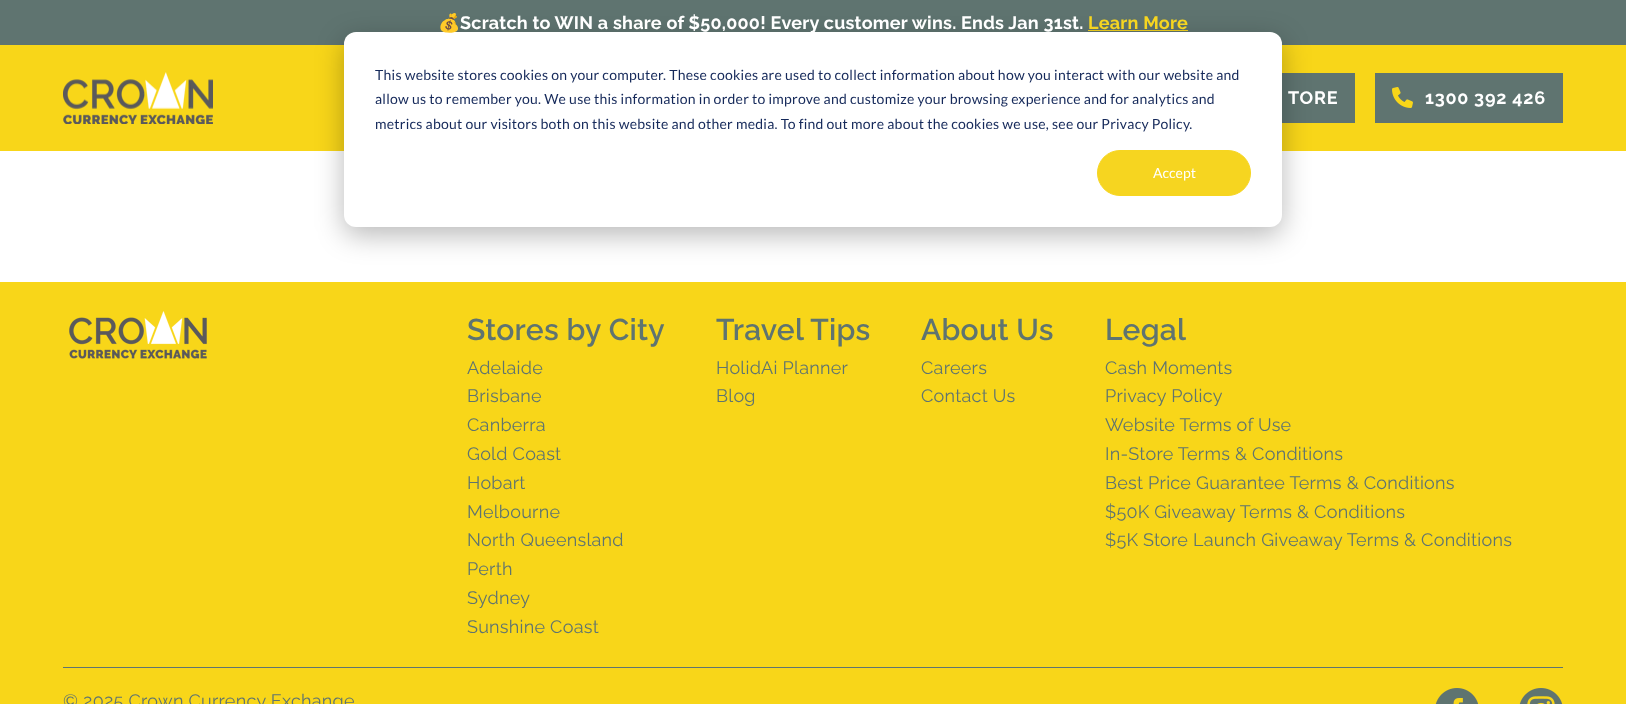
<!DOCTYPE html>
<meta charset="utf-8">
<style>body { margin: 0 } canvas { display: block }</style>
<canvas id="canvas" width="1626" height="704"></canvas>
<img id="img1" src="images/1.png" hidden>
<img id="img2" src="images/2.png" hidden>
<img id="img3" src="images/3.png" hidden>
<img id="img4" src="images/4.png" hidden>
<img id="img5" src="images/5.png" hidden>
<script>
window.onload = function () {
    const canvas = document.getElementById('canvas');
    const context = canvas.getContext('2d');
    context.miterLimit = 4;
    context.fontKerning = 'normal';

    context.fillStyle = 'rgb(255, 255, 255)';
    context.fillRect(0, 0, 1626, 704);
    context.fillStyle = 'rgb(248, 214, 25)';
    context.fillRect(0, 45, 1626, 106);
    context.fillStyle = 'rgb(95, 116, 112)';
    context.fillRect(0, 0, 1626, 45);
    context.fillStyle = 'rgb(246, 213, 32)';
    context.fillRect(1088, 30, 100, 1);
    context.drawImage(document.getElementById('img1'), 63, 72, 150, 52);
    context.fillStyle = 'rgb(95, 116, 112)';
    context.fillRect(1282, 73, 73, 50);
    context.fillRect(1375, 73, 188, 50);
    context.drawImage(document.getElementById('img2'), 1392, 87, 21, 21);
    context.fillStyle = 'rgb(248, 214, 25)';
    context.fillRect(0, 282, 1626, 422);
    context.drawImage(document.getElementById('img3'), 69, 311, 138, 48);
    context.fillStyle = 'rgb(95, 116, 112)';
    context.fillRect(63, 667, 1500, 1);
    context.drawImage(document.getElementById('img4'), 1435, 688, 44, 16);
    context.drawImage(document.getElementById('img5'), 1519, 688, 44, 16);
    context.fillStyle = 'rgba(0, 0, 0, 0.28)';
    context.filter = 'blur(14px)';
    context.beginPath();
    context.roundRect(344, 40, 938, 195, 12);
    context.fill();
    context.filter = 'none';
    context.fillStyle = 'rgb(255, 255, 255)';
    context.beginPath();
    context.roundRect(344, 32, 938, 195, 12);
    context.fill();
    context.fillStyle = 'rgb(246, 213, 32)';
    context.beginPath();
    context.roundRect(1097.5, 150.5, 153, 45, 22.5);
    context.fill();
    context.strokeStyle = 'rgb(246, 213, 32)';
    context.stroke();
    context.letterSpacing = '0.25px';
    context.font = 'bold 18px Noto Color Emoji';
    context.fillStyle = 'rgb(255, 255, 255)';
    context.fillText('💰', 438, 29);
    context.font = 'bold 18px Raleway';
    context.fillText('Scratch to WIN a share of $50,000! Every customer wins. Ends Jan 31st.', 460, 29);
    context.fillStyle = 'rgb(246, 213, 32)';
    context.fillText('Learn More', 1088, 29);
    context.letterSpacing = '0.75px';
    context.fillStyle = 'rgb(255, 255, 255)';
    context.fillText('TORE', 1288, 104);
    context.fillText('1300 392 426', 1425, 104);
    context.letterSpacing = '0.25px';
    context.font = '600 30px Raleway';
    context.fillStyle = 'rgb(95, 116, 112)';
    context.fillText('Stores by City', 467, 340);
    context.font = '18px Raleway';
    context.fillText('Adelaide', 467, 374);
    context.fillText('Brisbane', 467, 402);
    context.fillText('Canberra', 467, 431);
    context.fillText('Gold Coast', 467, 460);
    context.fillText('Hobart', 467, 489);
    context.fillText('Melbourne', 467, 518);
    context.fillText('North Queensland', 467, 546);
    context.fillText('Perth', 467, 575);
    context.fillText('Sydney', 467, 604);
    context.fillText('Sunshine Coast', 467, 633);
    context.font = '600 30px Raleway';
    context.fillText('Travel Tips', 716, 340);
    context.font = '18px Raleway';
    context.fillText('HolidAi Planner', 716, 374);
    context.fillText('Blog', 716, 402);
    context.font = '600 30px Raleway';
    context.fillText('About Us', 921, 340);
    context.font = '18px Raleway';
    context.fillText('Careers', 921, 374);
    context.fillText('Contact Us', 921, 402);
    context.font = '600 30px Raleway';
    context.fillText('Legal', 1105, 340);
    context.font = '18px Raleway';
    context.fillText('Cash Moments', 1105, 374);
    context.fillText('Privacy Policy', 1105, 402);
    context.fillText('Website Terms of Use', 1105, 431);
    context.fillText('In-Store Terms & Conditions', 1105, 460);
    context.fillText('Best Price Guarantee Terms & Conditions', 1105, 489);
    context.fillText('$50K Giveaway Terms & Conditions', 1105, 518);
    context.fillText('$5K Store Launch Giveaway Terms & Conditions', 1105, 546);
    context.fillText('© 2025 Crown Currency Exchange', 63, 707);
    context.font = '14px Lato';
    context.fillStyle = 'rgb(21, 41, 90)';
    context.fillText('This website stores cookies on your computer. These cookies are used to collect information about how you interact with our website and', 375, 80);
    context.fillText('allow us to remember you. We use this information in order to improve and customize your browsing experience and for analytics and', 375, 104);
    context.fillText('metrics about our visitors both on this website and other media. To find out more about the cookies we use, see our Privacy Policy.', 375, 129);
    context.letterSpacing = '0px';
    context.fillStyle = 'rgb(255, 255, 255)';
    context.fillText('Accept', 1153, 178);
};
</script>
